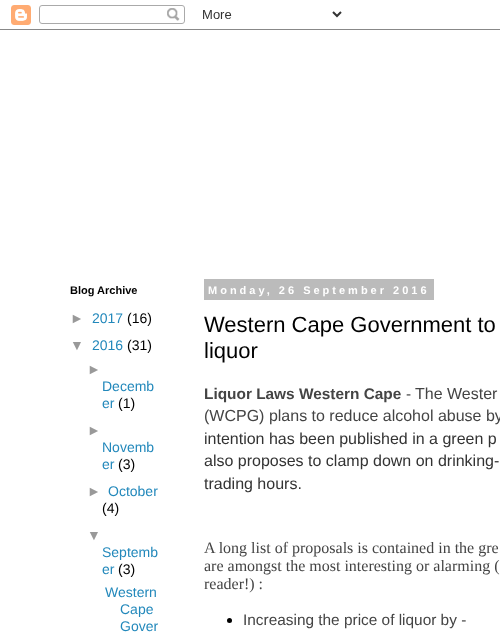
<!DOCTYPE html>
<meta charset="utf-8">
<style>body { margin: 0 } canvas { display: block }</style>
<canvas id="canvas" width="500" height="643"></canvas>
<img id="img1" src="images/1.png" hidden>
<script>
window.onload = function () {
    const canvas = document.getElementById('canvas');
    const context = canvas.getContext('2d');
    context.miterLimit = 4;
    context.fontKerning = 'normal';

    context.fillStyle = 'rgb(255, 255, 255)';
    context.fillRect(0, 0, 500, 643);
    context.drawImage(document.getElementById('img1'), 0, 5, 500, 25);
    context.fillStyle = 'rgb(187, 187, 187)';
    context.fillRect(204, 279, 230, 21);
    context.fillStyle = 'rgb(0, 0, 0)';
    context.beginPath();
    context.arc(229.5, 620.5, 2.5, 0, 2 * Math.PI);
    context.fill();
    context.font = 'bold 11px Liberation Sans';
    context.fillText('Blog Archive', 70, 294);
    context.font = '14px Liberation Sans';
    context.fillStyle = 'rgb(153, 153, 153)';
    context.fillText('►', 70, 323);
    context.fillStyle = 'rgb(34, 136, 187)';
    context.fillText('2017', 92, 323);
    context.fillStyle = 'rgb(0, 0, 0)';
    context.fillText('(16)', 127, 323);
    context.fillStyle = 'rgb(153, 153, 153)';
    context.fillText('▼', 70, 350);
    context.fillStyle = 'rgb(34, 136, 187)';
    context.fillText('2016', 92, 350);
    context.fillStyle = 'rgb(0, 0, 0)';
    context.fillText('(31)', 127, 350);
    context.fillStyle = 'rgb(153, 153, 153)';
    context.fillText('►', 87, 374);
    context.fillStyle = 'rgb(34, 136, 187)';
    context.fillText('Decemb', 102, 391);
    context.fillText('er', 102, 408);
    context.fillStyle = 'rgb(0, 0, 0)';
    context.fillText('(1)', 118, 408);
    context.fillStyle = 'rgb(153, 153, 153)';
    context.fillText('►', 87, 435);
    context.fillStyle = 'rgb(34, 136, 187)';
    context.fillText('Novemb', 102, 452);
    context.fillText('er', 102, 469);
    context.fillStyle = 'rgb(0, 0, 0)';
    context.fillText('(3)', 118, 469);
    context.fillStyle = 'rgb(153, 153, 153)';
    context.fillText('►', 87, 496);
    context.fillStyle = 'rgb(34, 136, 187)';
    context.fillText('October', 108, 496);
    context.fillStyle = 'rgb(0, 0, 0)';
    context.fillText('(4)', 102, 513);
    context.fillStyle = 'rgb(153, 153, 153)';
    context.fillText('▼', 87, 540);
    context.fillStyle = 'rgb(34, 136, 187)';
    context.fillText('Septemb', 102, 557);
    context.fillText('er', 102, 574);
    context.fillStyle = 'rgb(0, 0, 0)';
    context.fillText('(3)', 118, 574);
    context.fillStyle = 'rgb(34, 136, 187)';
    context.fillText('Western', 105, 597);
    context.fillText('Cape', 120, 614);
    context.fillText('Gover', 120, 631);
    context.letterSpacing = '3px';
    context.font = 'bold 11px Liberation Sans';
    context.fillStyle = 'rgb(255, 255, 255)';
    context.fillText('Monday, 26 September 2016', 208, 294);
    context.letterSpacing = '0px';
    context.font = '22px Liberation Sans';
    context.fillStyle = 'rgb(0, 0, 0)';
    context.fillText('Western Cape Government to', 204, 332);
    context.fillText('liquor', 204, 358);
    context.font = 'bold 15.4px Liberation Sans';
    context.fillStyle = 'rgb(68, 68, 68)';
    context.fillText('Liquor Laws Western Cape', 204, 399);
    context.font = '15.4px Liberation Sans';
    context.fillText('-', 406, 399);
    context.font = '16px Liberation Sans';
    context.fillText('The Wester', 415, 399);
    context.fillText('(WCPG) plans to reduce alcohol abuse by', 204, 421);
    context.fillStyle = 'rgb(51, 51, 51)';
    context.fillText('intention has been published in a green p', 204, 444);
    context.fillText('also proposes to clamp down on drinking-', 204, 466);
    context.fillText('trading hours.', 204, 489);
    context.font = '16px Liberation Serif';
    context.fillStyle = 'rgb(68, 68, 68)';
    context.fillText('A long list of proposals is contained in the gre', 204, 553);
    context.fillText('are amongst the most interesting or alarming (', 204, 571);
    context.fillText('reader!) :', 204, 589);
    context.font = '15.4px Liberation Sans';
    context.fillText('Increasing the price of liquor by -', 243, 625);
};
</script>
